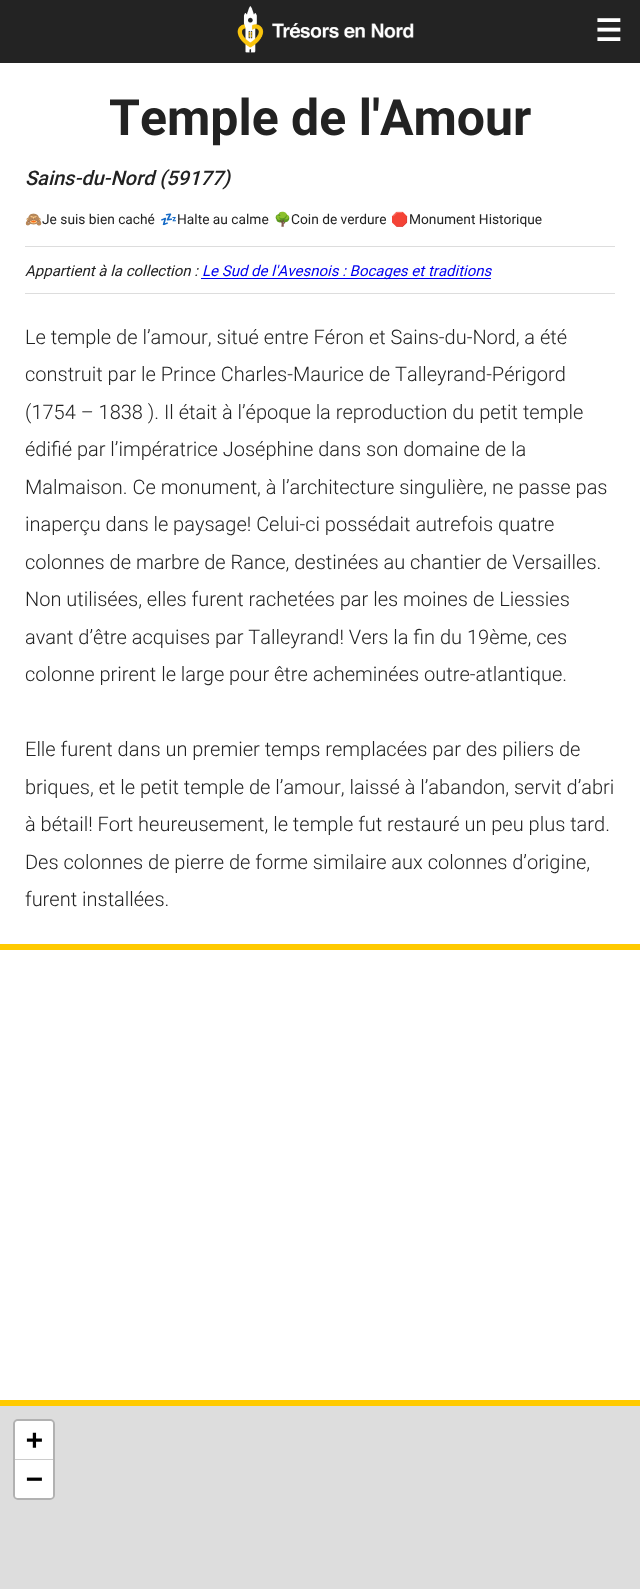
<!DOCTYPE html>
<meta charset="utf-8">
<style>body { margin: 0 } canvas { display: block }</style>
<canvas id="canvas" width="640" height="1589"></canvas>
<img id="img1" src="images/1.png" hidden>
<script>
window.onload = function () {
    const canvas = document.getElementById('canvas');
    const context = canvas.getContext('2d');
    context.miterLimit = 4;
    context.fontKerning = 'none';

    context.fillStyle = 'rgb(255, 255, 255)';
    context.fillRect(0, 0, 640, 1589);
    context.fillStyle = 'rgb(35, 35, 35)';
    context.fillRect(0, 0, 640, 63);
    context.drawImage(document.getElementById('img1'), 237, 6, 177, 47);
    context.fillStyle = 'rgb(221, 221, 221)';
    context.fillRect(25, 246, 590, 1);
    context.fillStyle = 'rgb(0, 0, 238)';
    context.fillRect(201, 278, 290, 1);
    context.fillStyle = 'rgb(221, 221, 221)';
    context.fillRect(25, 293, 590, 1);
    context.fillStyle = 'rgb(255, 202, 0)';
    context.fillRect(0, 944, 640, 6);
    context.fillStyle = 'rgb(221, 221, 221)';
    context.fillRect(0, 1406, 640, 183);
    context.fillStyle = 'rgb(255, 202, 0)';
    context.fillRect(0, 1400, 640, 6);
    context.beginPath();
    context.roundRect(14.5, 1420.5, 39, 78, 3.5);
    context.strokeStyle = 'rgb(177, 177, 177)';
    context.lineWidth = 3;
    context.stroke();
    context.fillStyle = 'rgb(255, 255, 255)';
    context.beginPath();
    context.roundRect(15, 1421, 38, 39, [2.5, 2.5, 0, 0]);
    context.fill();
    context.fillStyle = 'rgb(204, 204, 204)';
    context.fillRect(15, 1459, 38, 1);
    context.fillStyle = 'rgb(255, 255, 255)';
    context.beginPath();
    context.roundRect(15, 1460, 38, 38, [0, 0, 2.5, 2.5]);
    context.fill();
    context.font = 'bold 30px DejaVu Sans';
    context.fillText('☰', 595, 41);
    context.font = 'bold 50px Roboto';
    context.fillStyle = 'rgb(34, 34, 34)';
    context.fillText('Temple de l\'Amour', 109, 135);
    context.font = 'italic 500 20px Roboto';
    context.fillText('Sains-du-Nord (59177)', 25, 185);
    context.font = '13.75px Noto Color Emoji';
    context.fillText('🙈', 25, 224);
    context.font = '13.75px Roboto';
    context.fillText('Je suis bien caché', 42, 224);
    context.font = '13.75px Noto Color Emoji';
    context.fillText('💤', 160, 224);
    context.font = '13.75px Roboto';
    context.fillText('Halte au calme', 177, 224);
    context.font = '13.75px Noto Color Emoji';
    context.fillText('🌳', 274, 224);
    context.font = '13.75px Roboto';
    context.fillText('Coin de verdure', 291, 224);
    context.font = '13.75px Noto Color Emoji';
    context.fillText('🛑', 391, 224);
    context.font = '13.75px Roboto';
    context.fillText('Monument Historique', 409, 224);
    context.font = 'italic 15px Roboto';
    context.fillText('Appartient à la collection :', 25, 276);
    context.fillStyle = 'rgb(0, 0, 238)';
    context.fillText('Le Sud de l\'Avesnois : Bocages et traditions', 202, 276);
    context.font = '300 20px Roboto';
    context.fillStyle = 'rgb(34, 34, 34)';
    context.fillText('Le temple de l’amour, situé entre Féron et Sains-du-Nord, a été', 25, 344);
    context.fillText('construit par le Prince Charles-Maurice de Talleyrand-Périgord', 25, 381);
    context.fillText('(1754 – 1838 ). Il était à l’époque la reproduction du petit temple', 25, 419);
    context.fillText('édifié par l’impératrice Joséphine dans son domaine de la', 25, 456);
    context.fillText('Malmaison. Ce monument, à l’architecture singulière, ne passe pas', 25, 494);
    context.fillText('inaperçu dans le paysage! Celui-ci possédait autrefois quatre', 25, 531);
    context.fillText('colonnes de marbre de Rance, destinées au chantier de Versailles.', 25, 569);
    context.fillText('Non utilisées, elles furent rachetées par les moines de Liessies', 25, 606);
    context.fillText('avant d’être acquises par Talleyrand! Vers la fin du 19ème, ces', 25, 644);
    context.fillText('colonne prirent le large pour être acheminées outre-atlantique.', 25, 681);
    context.fillText('Elle furent dans un premier temps remplacées par des piliers de', 25, 756);
    context.fillText('briques, et le petit temple de l’amour, laissé à l’abandon, servit d’abri', 25, 794);
    context.fillText('à bétail! Fort heureusement, le temple fut restauré un peu plus tard.', 25, 831);
    context.fillText('Des colonnes de pierre de forme similaire aux colonnes d’origine,', 25, 869);
    context.fillText('furent installées.', 25, 906);
    context.font = 'bold 28px DejaVu Sans Mono';
    context.fillStyle = 'rgb(0, 0, 0)';
    context.fillText('+', 26, 1449);
    context.fillText('−', 26, 1488);
};
</script>
